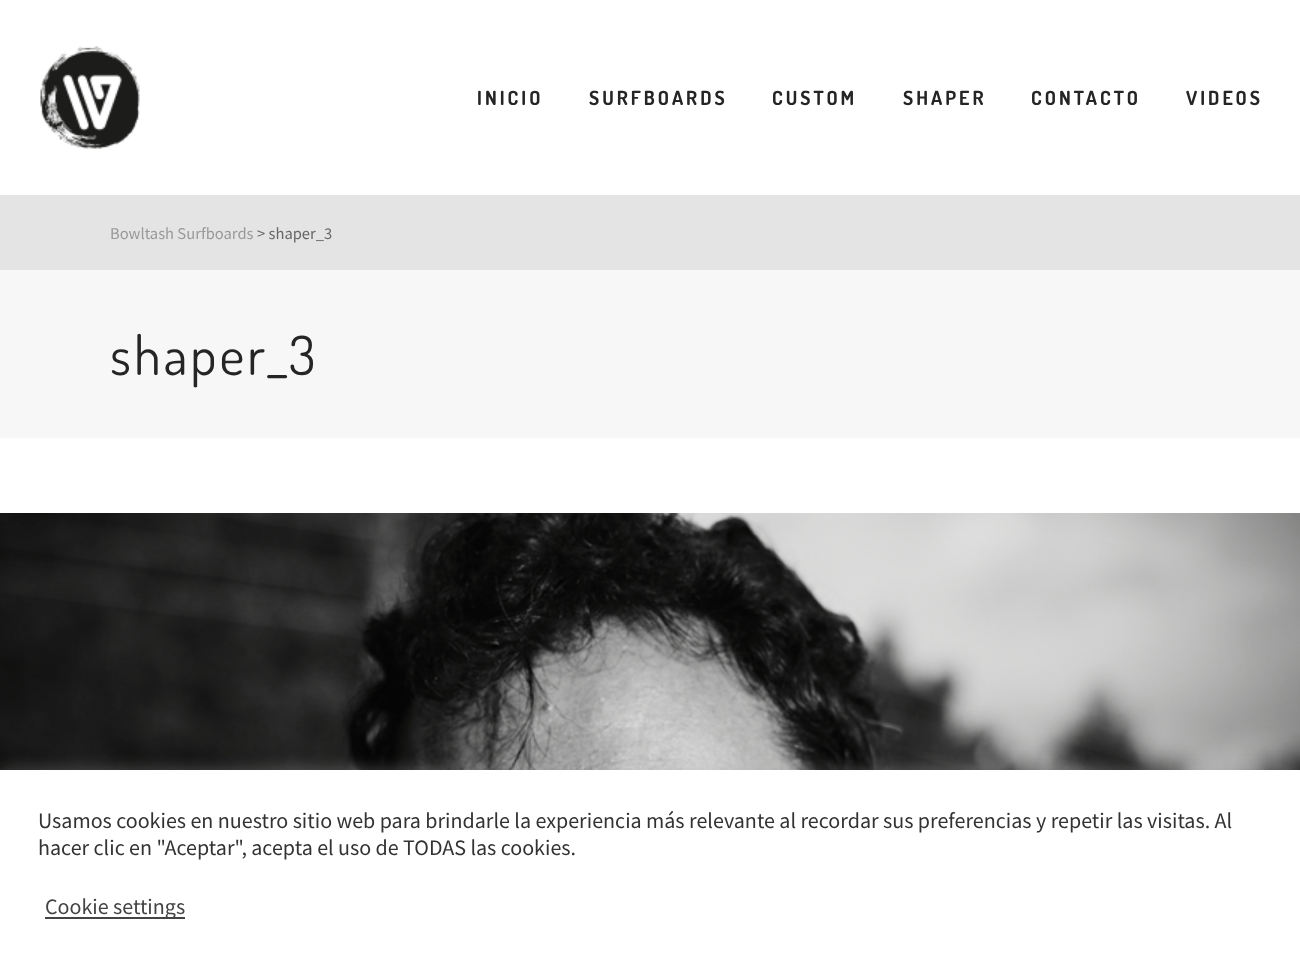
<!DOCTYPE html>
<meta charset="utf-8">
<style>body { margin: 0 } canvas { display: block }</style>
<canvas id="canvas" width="1300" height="975"></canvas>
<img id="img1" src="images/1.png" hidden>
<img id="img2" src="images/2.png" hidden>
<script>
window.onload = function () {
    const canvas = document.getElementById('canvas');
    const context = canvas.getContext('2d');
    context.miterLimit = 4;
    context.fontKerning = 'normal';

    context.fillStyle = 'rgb(255, 255, 255)';
    context.fillRect(0, 0, 1300, 975);
    context.drawImage(document.getElementById('img1'), 40, 46, 100, 103);
    context.fillStyle = 'rgb(228, 228, 228)';
    context.fillRect(0, 195, 1300, 75);
    context.fillStyle = 'rgb(247, 247, 247)';
    context.fillRect(0, 270, 1300, 168);
    context.drawImage(document.getElementById('img2'), 0, 513, 1300, 257);
    context.fillStyle = 'rgba(172, 171, 171, 0.3)';
    context.filter = 'blur(7.5px)';
    context.beginPath();
    context.rect(0, 768, 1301, 206);
    context.fill();
    context.filter = 'none';
    context.fillStyle = 'rgb(255, 255, 255)';
    context.fillRect(0, 770, 1300, 205);
    context.fillStyle = 'rgb(68, 68, 68)';
    context.fillRect(45, 917, 140, 2);
    context.letterSpacing = '3px';
    context.font = 'bold 19.5px Dosis';
    context.fillStyle = 'rgb(37, 37, 37)';
    context.fillText('INICIO', 477, 105);
    context.fillText('SURFBOARDS', 589, 105);
    context.fillText('CUSTOM', 772, 105);
    context.fillText('SHAPER', 903, 105);
    context.fillText('CONTACTO', 1031, 105);
    context.fillText('VIDEOS', 1186, 105);
    context.letterSpacing = '0px';
    context.font = '16.5px Source Sans Pro';
    context.fillStyle = 'rgb(153, 153, 153)';
    context.fillText('Bowltash Surfboards', 110, 239);
    context.fillStyle = 'rgb(102, 102, 102)';
    context.fillText('> shaper_3', 257, 239);
    context.letterSpacing = '3px';
    context.font = '54px Dosis';
    context.fillStyle = 'rgb(37, 37, 37)';
    context.fillText('shaper_3', 110, 375);
    context.letterSpacing = '0px';
    context.font = '22px Source Sans Pro';
    context.fillStyle = 'rgb(51, 51, 51)';
    context.fillText('Usamos cookies en nuestro sitio web para brindarle la experiencia más relevante al recordar sus preferencias y repetir las visitas. Al', 38, 828);
    context.fillText('hacer clic en "Aceptar", acepta el uso de TODAS las cookies.', 38, 855);
    context.fillStyle = 'rgb(68, 68, 68)';
    context.fillText('Cookie settings', 45, 914);
};
</script>
